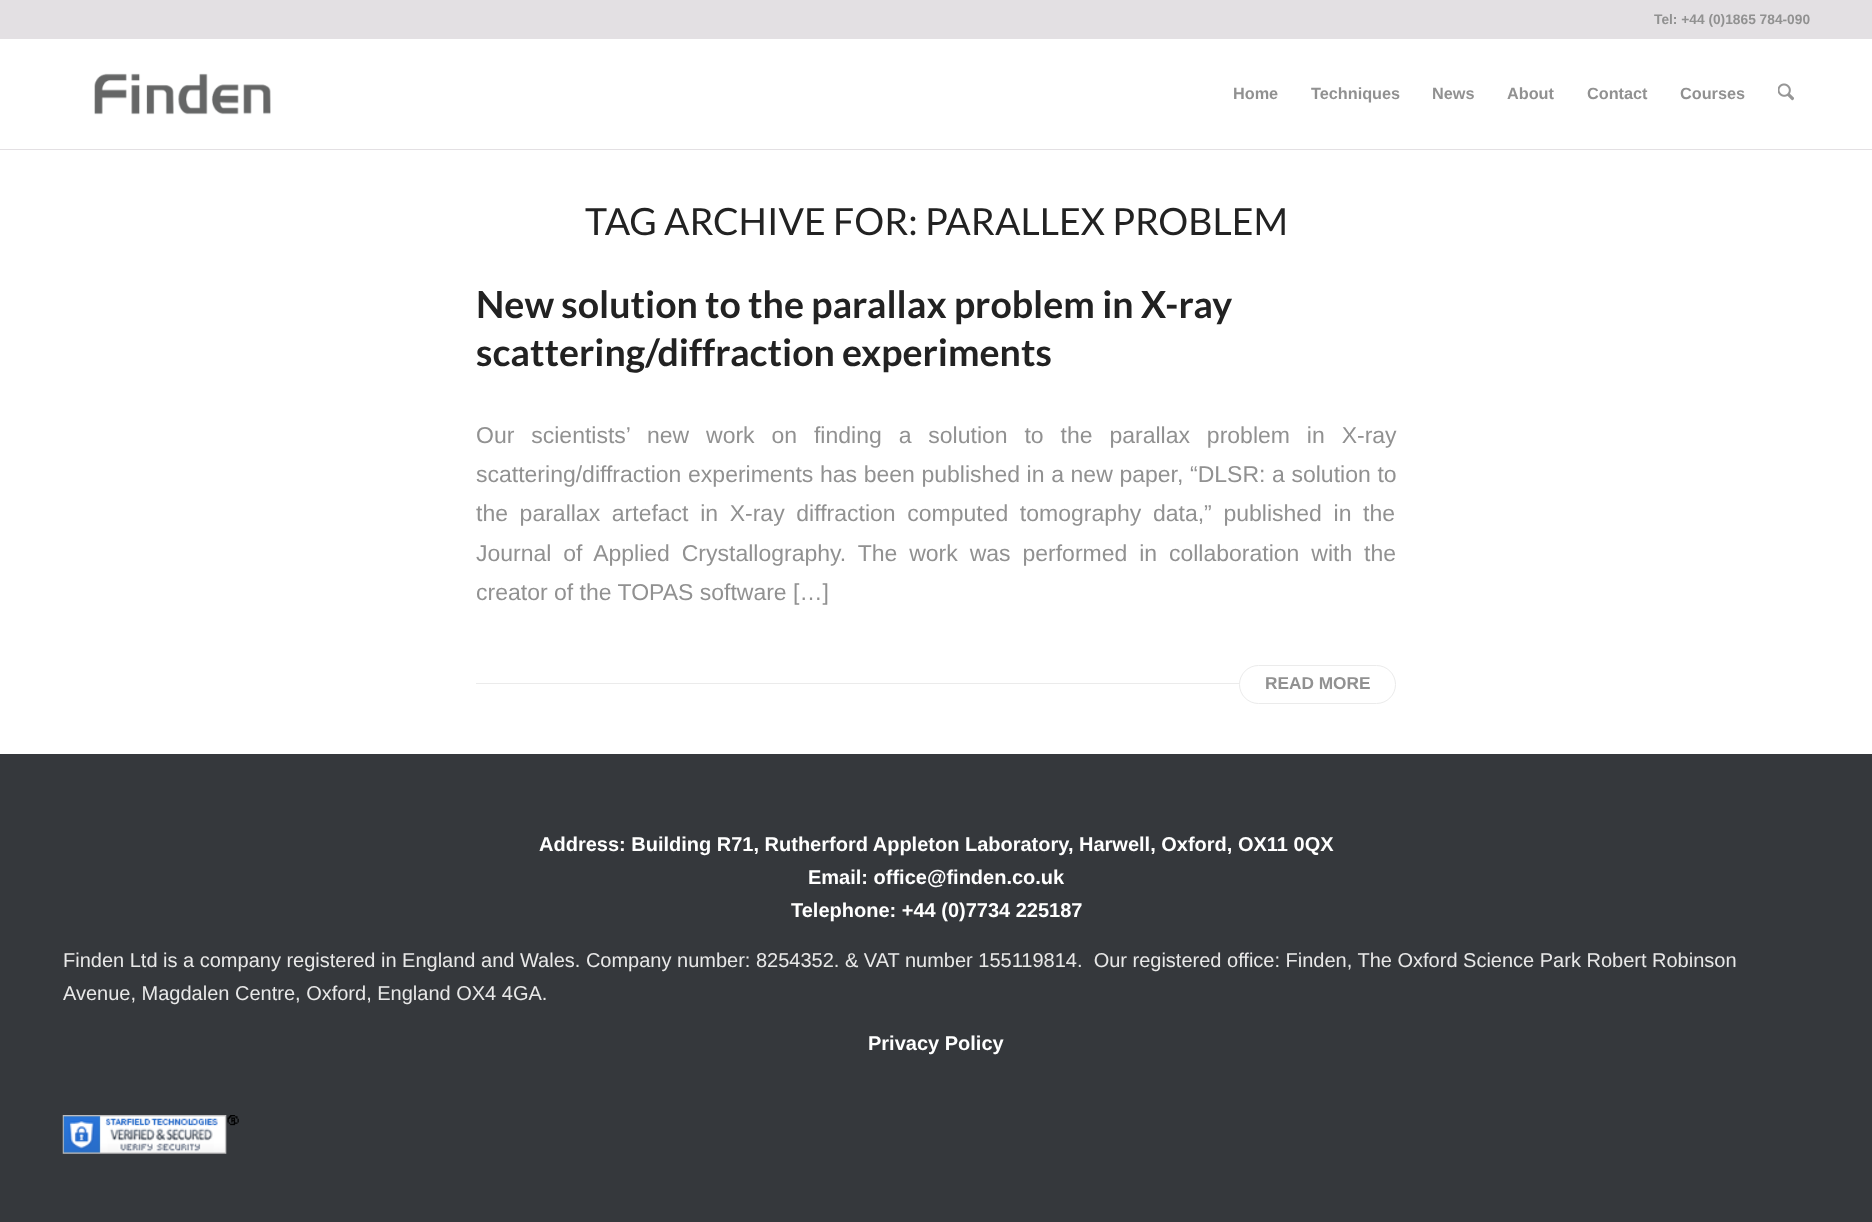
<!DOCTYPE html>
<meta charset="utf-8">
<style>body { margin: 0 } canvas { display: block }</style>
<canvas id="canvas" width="1872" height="1222"></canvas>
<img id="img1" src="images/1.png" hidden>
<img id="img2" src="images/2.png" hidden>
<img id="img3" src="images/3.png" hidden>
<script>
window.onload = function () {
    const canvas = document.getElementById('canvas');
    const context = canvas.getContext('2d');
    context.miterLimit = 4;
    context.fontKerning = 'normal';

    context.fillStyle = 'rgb(255, 255, 255)';
    context.fillRect(0, 0, 1872, 1222);
    context.fillStyle = 'rgb(227, 224, 227)';
    context.fillRect(0, 0, 1872, 39);
    context.fillRect(0, 149, 1872, 1);
    context.drawImage(document.getElementById('img1'), 94, 73, 177, 42);
    context.drawImage(document.getElementById('img2'), 1778, 83, 16, 18);
    context.fillStyle = 'rgb(235, 235, 235)';
    context.fillRect(476, 683, 920, 1);
    context.fillStyle = 'rgb(255, 255, 255)';
    context.beginPath();
    context.roundRect(1239.5, 665.5, 156, 38, 19);
    context.fill();
    context.strokeStyle = 'rgb(235, 235, 235)';
    context.stroke();
    context.fillStyle = 'rgb(53, 56, 60)';
    context.fillRect(0, 754, 1872, 468);
    context.drawImage(document.getElementById('img3'), 62, 1115, 177, 39);
    context.font = 'bold 13.75px Liberation Sans';
    context.fillStyle = 'rgb(145, 145, 145)';
    context.fillText('Tel: +44 (0)1865 784-090', 1654, 24);
    context.font = 'bold 16.25px Liberation Sans';
    context.fillText('Home', 1233, 99);
    context.fillText('Techniques', 1311, 99);
    context.fillText('News', 1432, 99);
    context.fillText('About', 1507, 99);
    context.fillText('Contact', 1587, 99);
    context.fillText('Courses', 1680, 99);
    context.font = '37.5px Lato';
    context.fillStyle = 'rgb(34, 34, 34)';
    context.fillText('TAG ARCHIVE FOR: PARALLEX PROBLEM', 585, 235);
    context.font = 'bold 37.5px Lato';
    context.fillText('New solution to the parallax problem in X-ray', 476, 318);
    context.fillText('scattering/diffraction experiments', 476, 366);
    context.wordSpacing = '10.5px';
    context.font = '23px Liberation Sans';
    context.fillStyle = 'rgb(145, 145, 145)';
    context.fillText('Our scientists’ new work on finding a solution to the parallax problem in X-ray', 476, 443);
    context.wordSpacing = '0.25px';
    context.fillText('scattering/diffraction experiments has been published in a new paper, “DLSR: a solution to', 476, 482);
    context.wordSpacing = '5.25px';
    context.fillText('the parallax artefact in X‐ray diffraction computed tomography data,” published in the', 476, 521);
    context.wordSpacing = '5.5px';
    context.fillText('Journal of Applied Crystallography. The work was performed in collaboration with the', 476, 561);
    context.wordSpacing = '0px';
    context.fillText('creator of the TOPAS software […]', 476, 600);
    context.font = 'bold 17.25px Liberation Sans';
    context.fillText('READ MORE', 1265, 689);
    context.font = 'bold 20px Liberation Sans';
    context.fillStyle = 'rgb(255, 255, 255)';
    context.fillText('Address: Building R71, Rutherford Appleton Laboratory, Harwell, Oxford, OX11 0QX', 539, 851);
    context.fillText('Email: office@finden.co.uk', 808, 884);
    context.fillText('Telephone: +44 (0)7734 225187', 791, 917);
    context.font = '20px Liberation Sans';
    context.fillStyle = 'rgb(232, 232, 232)';
    context.fillText('Finden Ltd is a company registered in England and Wales. Company number: 8254352. & VAT number 155119814.  Our registered office: Finden, The Oxford Science Park Robert Robinson', 63, 967);
    context.fillText('Avenue, Magdalen Centre, Oxford, England OX4 4GA.', 63, 1000);
    context.font = 'bold 20px Liberation Sans';
    context.fillStyle = 'rgb(255, 255, 255)';
    context.fillText('Privacy Policy', 868, 1050);
};
</script>
